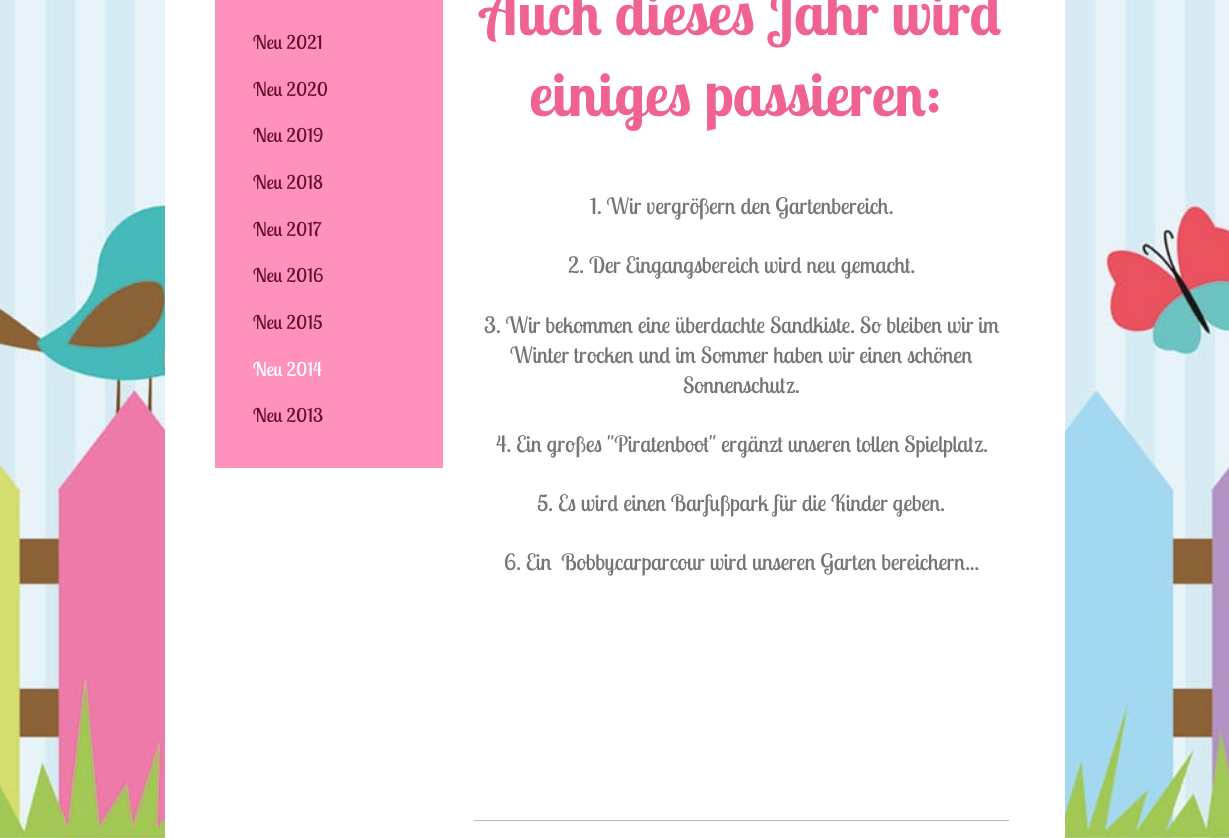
<!DOCTYPE html>
<meta charset="utf-8">
<style>body { margin: 0 } canvas { display: block }</style>
<canvas id="canvas" width="1229" height="838"></canvas>
<img id="img1" src="images/1.png" hidden>
<script>
window.onload = function () {
    const canvas = document.getElementById('canvas');
    const context = canvas.getContext('2d');
    context.miterLimit = 4;
    context.fontKerning = 'normal';

    context.fillStyle = 'rgb(255, 255, 255)';
    context.fillRect(0, 0, 1229, 838);
    context.drawImage(document.getElementById('img1'), 0, 0, 1229, 838);
    context.fillRect(165, 0, 900, 838);
    context.fillStyle = 'rgb(255, 146, 188)';
    context.fillRect(215, 0, 228, 468);
    context.fillStyle = 'rgb(186, 186, 186)';
    context.fillRect(474, 820, 535, 1);
    context.font = '19px Lobster Two';
    context.fillStyle = 'rgb(100, 13, 46)';
    context.fillText('Neu 2021', 253, 49);
    context.fillText('Neu 2020', 253, 96);
    context.fillText('Neu 2019', 253, 142);
    context.fillText('Neu 2018', 253, 189);
    context.fillText('Neu 2017', 253, 236);
    context.fillText('Neu 2016', 253, 282);
    context.fillText('Neu 2015', 253, 329);
    context.fillStyle = 'rgb(255, 255, 255)';
    context.fillText('Neu 2014', 253, 376);
    context.fillStyle = 'rgb(100, 13, 46)';
    context.fillText('Neu 2013', 253, 422);
    context.font = 'bold 60px Lobster Two';
    context.fillStyle = 'rgb(240, 98, 146)';
    context.fillText('Auch dieses Jahr wird', 481, 35);
    context.fillText('einiges passieren:', 529, 116);
    context.font = '22.5px Lobster Two';
    context.fillStyle = 'rgb(117, 117, 117)';
    context.fillText('1. Wir vergrößern den Gartenbereich.', 590, 214);
    context.fillText('2. Der Eingangsbereich wird neu gemacht.', 568, 273);
    context.fillText('3. Wir bekommen eine überdachte Sandkiste. So bleiben wir im', 484, 333);
    context.fillText('Winter trocken und im Sommer haben wir einen schönen', 510, 363);
    context.fillText('Sonnenschutz.', 683, 393);
    context.fillText('4. Ein großes "Piratenboot" ergänzt unseren tollen Spielplatz.', 496, 452);
    context.fillText('5. Es wird einen Barfußpark für die Kinder geben.', 537, 511);
    context.fillText('6. Ein  Bobbycarparcour wird unseren Garten bereichern...', 504, 570);
};
</script>
